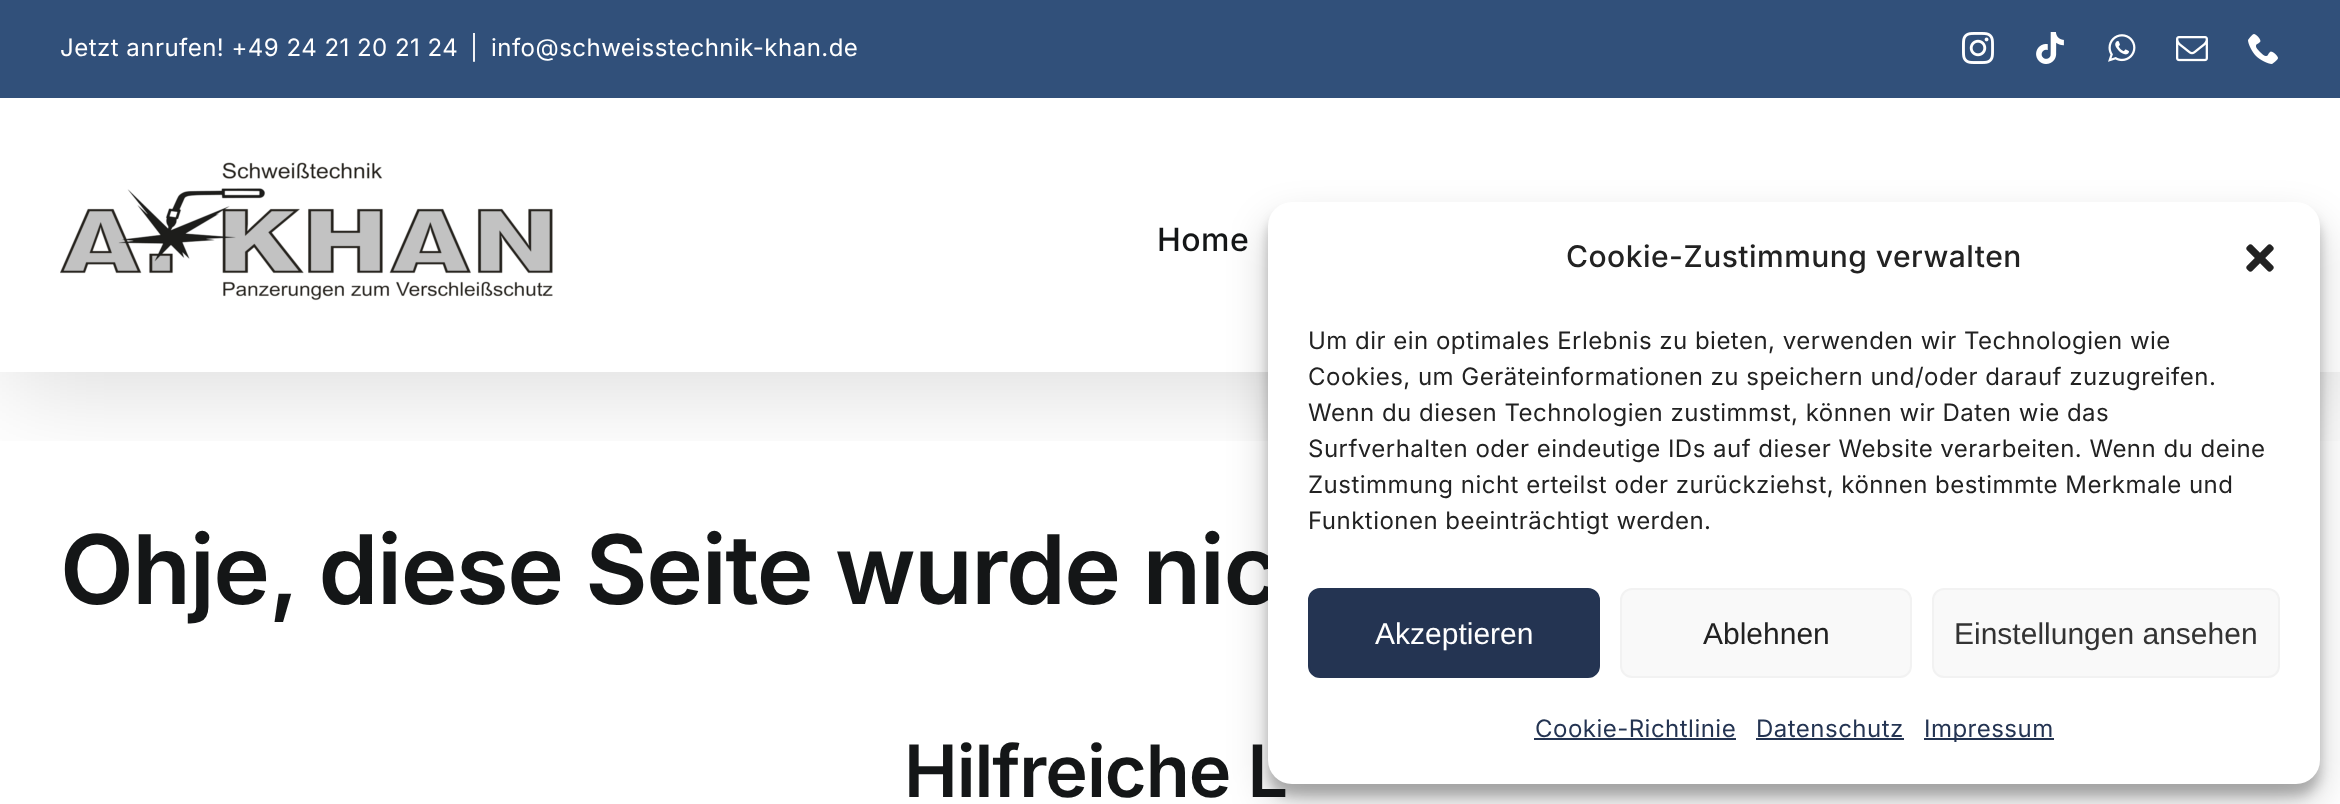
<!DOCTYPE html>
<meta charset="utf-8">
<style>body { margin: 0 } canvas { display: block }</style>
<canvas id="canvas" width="2340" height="804"></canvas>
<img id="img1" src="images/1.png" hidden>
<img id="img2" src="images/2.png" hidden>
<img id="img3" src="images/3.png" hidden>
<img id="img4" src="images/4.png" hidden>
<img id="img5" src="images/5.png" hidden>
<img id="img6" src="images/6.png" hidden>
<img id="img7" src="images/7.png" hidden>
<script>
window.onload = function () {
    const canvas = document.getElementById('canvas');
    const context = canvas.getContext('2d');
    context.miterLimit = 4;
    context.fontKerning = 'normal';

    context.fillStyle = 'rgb(255, 255, 255)';
    context.fillRect(0, 0, 2340, 804);
    context.save();
    context.beginPath();
    context.rect(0, 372, 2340, 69);
    context.clip();
    context.fillStyle = 'rgba(0, 0, 0, 0.14)';
    context.filter = 'blur(50px)';
    context.beginPath();
    context.rect(4, 24, 2332, 364);
    context.fill();
    context.filter = 'none';
    context.restore();
    context.fillStyle = 'rgb(49, 80, 122)';
    context.fillRect(0, 0, 2340, 98);
    context.drawImage(document.getElementById('img1'), 1962, 32, 32, 32);
    context.drawImage(document.getElementById('img2'), 2036, 32, 28, 32);
    context.drawImage(document.getElementById('img3'), 2108, 34, 28, 28);
    context.drawImage(document.getElementById('img4'), 2176, 36, 32, 26);
    context.drawImage(document.getElementById('img5'), 2248, 34, 30, 30);
    context.drawImage(document.getElementById('img6'), 60, 162, 493, 139);
    context.fillStyle = 'rgba(0, 0, 0, 0.23)';
    context.filter = 'blur(6px)';
    context.beginPath();
    context.roundRect(1268, 214, 1052, 582, 24);
    context.fill();
    context.filter = 'none';
    context.fillStyle = 'rgba(0, 0, 0, 0.19)';
    context.filter = 'blur(20px)';
    context.beginPath();
    context.roundRect(1268, 222, 1052, 582, 24);
    context.fill();
    context.filter = 'none';
    context.letterSpacing = '0.48px';
    context.font = '24px Inter';
    context.fillStyle = 'rgb(255, 255, 255)';
    context.fillText('Jetzt anrufen! +49 24 21 20 21 24', 60, 56);
    context.fillText('|', 470, 56);
    context.fillText('info@schweisstechnik-khan.de', 491, 56);
    context.font = '500 32px Inter';
    context.fillStyle = 'rgb(20, 22, 23)';
    context.fillText('Home', 1157, 251);
    context.letterSpacing = '-1.45px';
    context.font = '600 96px Inter';
    context.fillText('Ohje, diese Seite wurde nic', 60, 604);
    context.letterSpacing = '-1px';
    context.font = '600 72px Inter';
    context.fillText('Hilfreiche L', 904, 797);
    context.fillStyle = 'rgb(255, 255, 255)';
    context.beginPath();
    context.roundRect(1268, 202, 1052, 582, 24);
    context.fill();
    context.letterSpacing = '0.48px';
    context.font = '500 30px Inter';
    context.fillStyle = 'rgb(34, 34, 34)';
    context.fillText('Cookie-Zustimmung verwalten', 1566, 267);
    context.drawImage(document.getElementById('img7'), 2246, 244, 28, 28);
    context.font = '24px Inter';
    context.fillText('Um dir ein optimales Erlebnis zu bieten, verwenden wir Technologien wie', 1308, 349);
    context.fillText('Cookies, um Geräteinformationen zu speichern und/oder darauf zuzugreifen.', 1308, 385);
    context.fillText('Wenn du diesen Technologien zustimmst, können wir Daten wie das', 1308, 421);
    context.fillText('Surfverhalten oder eindeutige IDs auf dieser Website verarbeiten. Wenn du deine', 1308, 457);
    context.fillText('Zustimmung nicht erteilst oder zurückziehst, können bestimmte Merkmale und', 1308, 493);
    context.fillText('Funktionen beeinträchtigt werden.', 1308, 529);
    context.fillStyle = 'rgb(36, 52, 82)';
    context.beginPath();
    context.roundRect(1309, 589, 290, 88, 11);
    context.fill();
    context.strokeStyle = 'rgb(36, 52, 82)';
    context.lineWidth = 2;
    context.stroke();
    context.letterSpacing = '0px';
    context.font = '30px Liberation Sans';
    context.fillStyle = 'rgb(255, 255, 255)';
    context.fillText('Akzeptieren', 1375, 644);
    context.fillStyle = 'rgb(249, 249, 249)';
    context.beginPath();
    context.roundRect(1621, 589, 290, 88, 11);
    context.fill();
    context.strokeStyle = 'rgb(242, 242, 242)';
    context.stroke();
    context.fillStyle = 'rgb(34, 34, 34)';
    context.fillText('Ablehnen', 1703, 644);
    context.fillStyle = 'rgb(249, 249, 249)';
    context.beginPath();
    context.roundRect(1933, 589, 346, 88, 11);
    context.fill();
    context.stroke();
    context.fillStyle = 'rgb(51, 51, 51)';
    context.fillText('Einstellungen ansehen', 1954, 644);
    context.letterSpacing = '0.48px';
    context.font = '24px Inter';
    context.fillStyle = 'rgb(36, 52, 82)';
    context.fillText('Cookie-Richtlinie', 1535, 737);
    context.fillRect(1534, 738, 202, 2);
    context.fillText('Datenschutz', 1756, 737);
    context.fillRect(1756, 738, 148, 2);
    context.fillRect(1924, 738, 130, 2);
    context.fillText('Impressum', 1924, 737);
};
</script>
